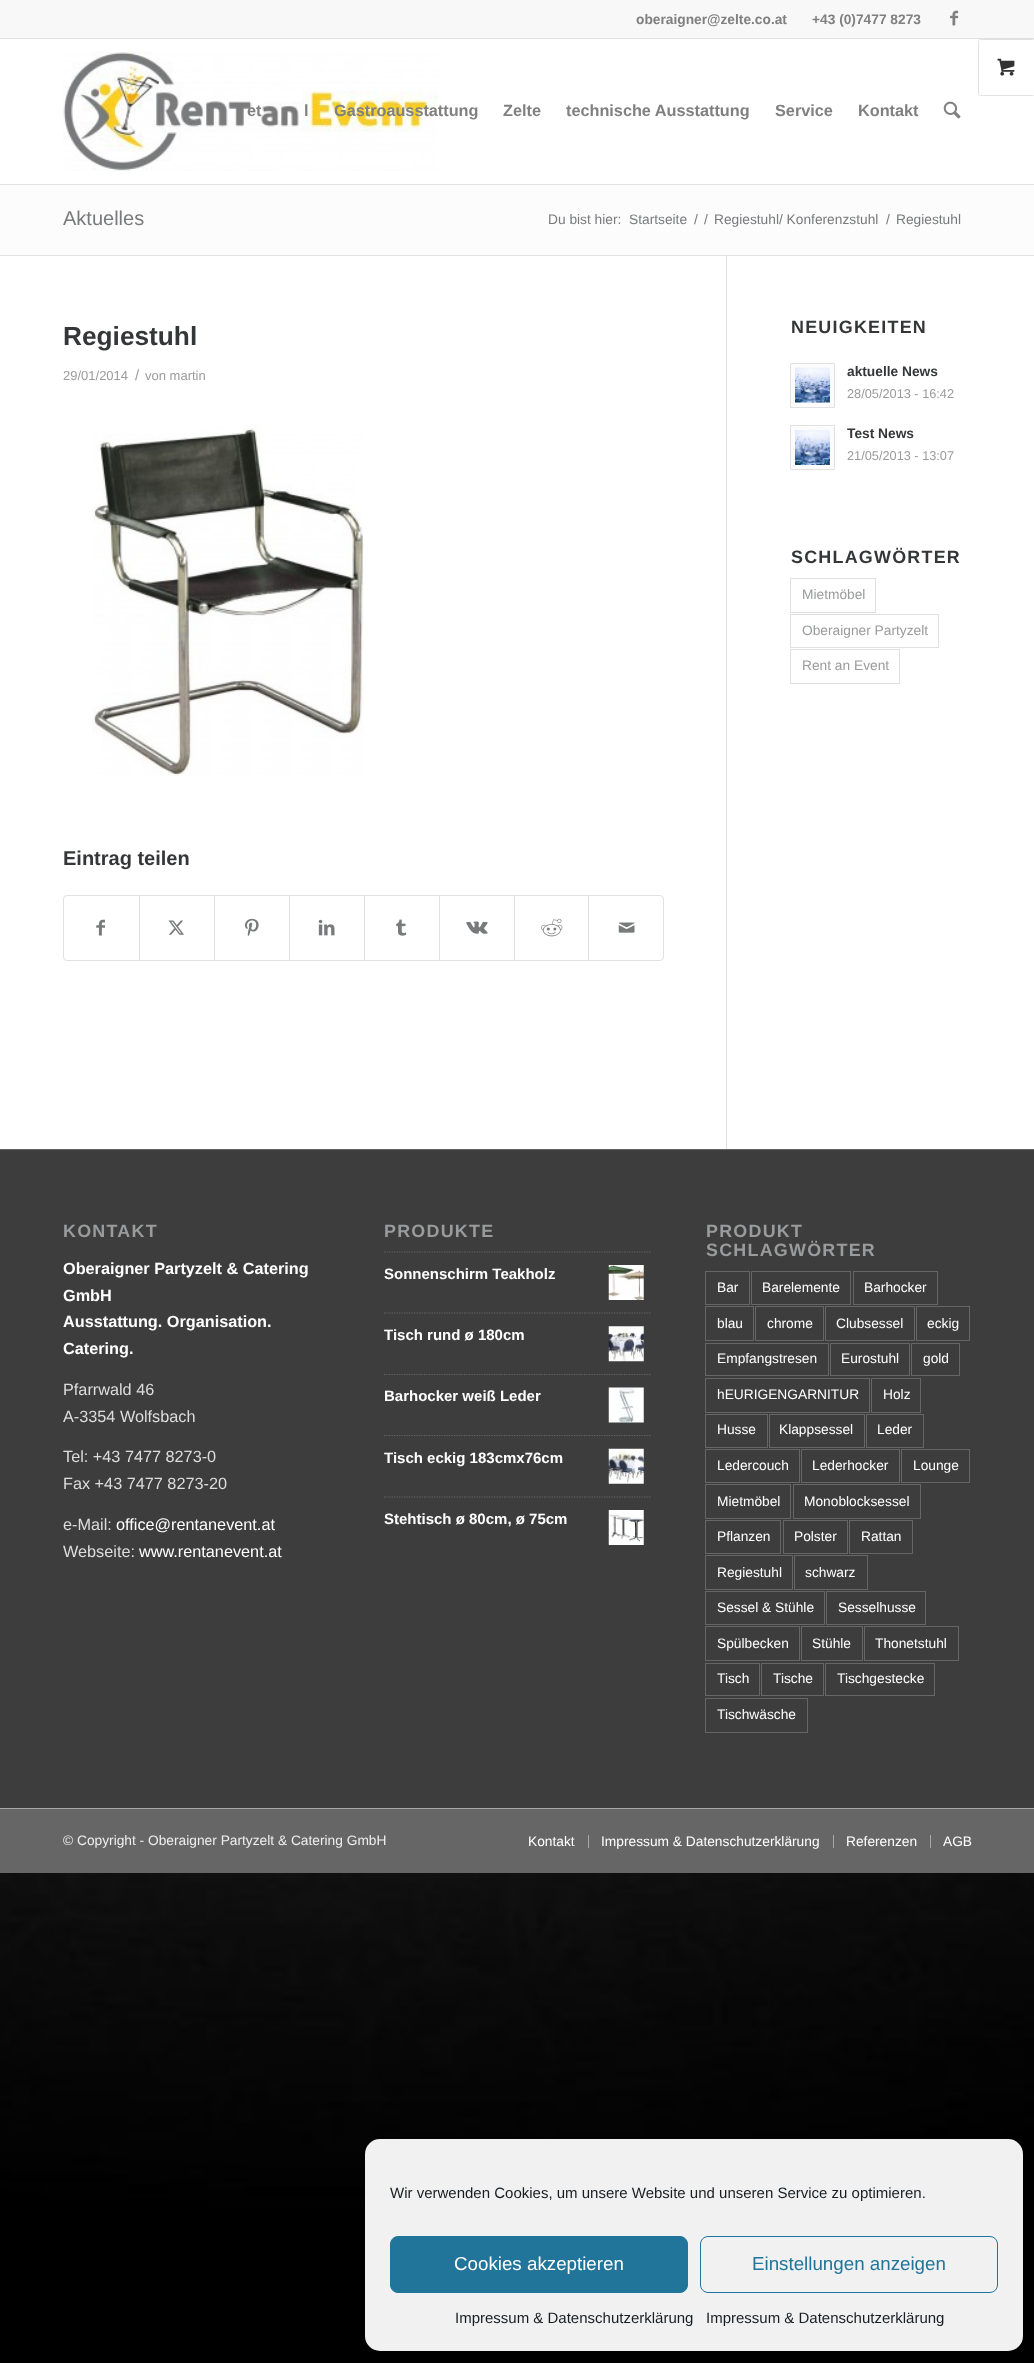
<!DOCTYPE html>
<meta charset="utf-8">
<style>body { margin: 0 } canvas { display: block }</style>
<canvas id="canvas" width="1034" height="2363"></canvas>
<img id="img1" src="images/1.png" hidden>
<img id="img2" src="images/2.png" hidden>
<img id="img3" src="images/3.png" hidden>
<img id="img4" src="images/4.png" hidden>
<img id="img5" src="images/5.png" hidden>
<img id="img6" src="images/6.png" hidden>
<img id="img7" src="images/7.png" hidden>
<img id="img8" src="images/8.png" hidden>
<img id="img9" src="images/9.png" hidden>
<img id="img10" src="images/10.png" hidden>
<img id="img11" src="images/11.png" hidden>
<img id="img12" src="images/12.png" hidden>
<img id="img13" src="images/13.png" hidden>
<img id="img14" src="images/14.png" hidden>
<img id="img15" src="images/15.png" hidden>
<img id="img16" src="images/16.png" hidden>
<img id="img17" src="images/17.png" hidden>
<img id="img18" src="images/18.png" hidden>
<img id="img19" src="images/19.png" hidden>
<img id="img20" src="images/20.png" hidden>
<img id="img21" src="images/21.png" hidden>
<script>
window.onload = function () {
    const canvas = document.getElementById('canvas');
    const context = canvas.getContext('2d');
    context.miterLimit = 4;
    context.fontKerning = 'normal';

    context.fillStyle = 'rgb(255, 255, 255)';
    context.fillRect(0, 0, 1034, 2363);
    context.fillStyle = 'rgb(248, 248, 248)';
    context.fillRect(0, 0, 1034, 38);
    context.fillStyle = 'rgb(225, 225, 225)';
    context.fillRect(0, 38, 1034, 1);
    context.drawImage(document.getElementById('img1'), 950, 10, 9, 16);
    context.fillRect(0, 184, 1034, 1);
    context.beginPath();
    context.roundRect(978.5, 39.5, 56, 56, 2);
    context.strokeStyle = 'rgb(225, 225, 225)';
    context.stroke();
    context.fillStyle = 'rgb(255, 255, 255)';
    context.fillRect(979, 40, 55, 55);
    context.drawImage(document.getElementById('img2'), 997, 58, 18, 18);
    context.drawImage(document.getElementById('img3'), 62, 51, 376, 120);
    context.drawImage(document.getElementById('img4'), 943, 101, 18, 18);
    context.fillStyle = 'rgb(252, 252, 252)';
    context.fillRect(0, 185, 1034, 70);
    context.fillStyle = 'rgb(225, 225, 225)';
    context.fillRect(0, 255, 1034, 1);
    context.fillRect(726, 256, 1, 893);
    context.drawImage(document.getElementById('img5'), 92, 424, 272, 352);
    context.beginPath();
    context.roundRect(63.5, 895.5, 600, 65, 3.5);
    context.stroke();
    context.drawImage(document.getElementById('img6'), 96, 919, 9, 17);
    context.fillRect(139, 896, 1, 64);
    context.drawImage(document.getElementById('img7'), 168, 920, 16, 15);
    context.fillRect(214, 896, 1, 64);
    context.drawImage(document.getElementById('img8'), 245, 918, 14, 19);
    context.fillRect(289, 896, 1, 64);
    context.drawImage(document.getElementById('img9'), 318, 919, 17, 17);
    context.fillRect(364, 896, 1, 64);
    context.drawImage(document.getElementById('img10'), 396, 919, 11, 17);
    context.fillRect(439, 896, 1, 64);
    context.drawImage(document.getElementById('img11'), 466, 921, 22, 13);
    context.fillRect(514, 896, 1, 64);
    context.drawImage(document.getElementById('img12'), 541, 918, 22, 19);
    context.fillRect(588, 896, 1, 64);
    context.drawImage(document.getElementById('img13'), 618, 922, 17, 11);
    context.fillStyle = 'rgb(252, 252, 252)';
    context.beginPath();
    context.rect(790.5, 363.5, 44, 44);
    context.fill();
    context.stroke();
    context.drawImage(document.getElementById('img14'), 795, 367, 35, 36);
    context.beginPath();
    context.rect(790.5, 425.5, 44, 44);
    context.fill();
    context.stroke();
    context.drawImage(document.getElementById('img15'), 795, 430, 35, 35);
    context.strokeRect(790.5, 578.5, 85, 34);
    context.strokeRect(790.5, 614.5, 148, 33);
    context.strokeRect(790.5, 649.5, 109, 34);
    context.fillStyle = 'rgb(61, 61, 61)';
    context.fillRect(0, 1150, 1034, 658);
    context.fillStyle = 'rgb(102, 102, 102)';
    context.fillRect(0, 1149, 1034, 1);
    context.beginPath();
    context.moveTo(384, 1252);
    context.lineTo(651, 1252);
    context.strokeStyle = 'rgb(102, 102, 102)';
    context.lineWidth = 1.2;
    context.setLineDash([1.25, 1.25]);
    context.stroke();
    context.drawImage(document.getElementById('img16'), 608, 1265, 36, 35);
    context.beginPath();
    context.moveTo(384, 1313);
    context.lineTo(651, 1313);
    context.stroke();
    context.drawImage(document.getElementById('img17'), 608, 1326, 36, 36);
    context.beginPath();
    context.moveTo(384, 1374.5);
    context.lineTo(651, 1374.5);
    context.stroke();
    context.drawImage(document.getElementById('img18'), 608, 1387, 36, 36);
    context.beginPath();
    context.moveTo(384, 1435.5);
    context.lineTo(651, 1435.5);
    context.stroke();
    context.drawImage(document.getElementById('img19'), 608, 1448, 36, 36);
    context.beginPath();
    context.moveTo(384, 1497);
    context.lineTo(651, 1497);
    context.stroke();
    context.drawImage(document.getElementById('img20'), 608, 1510, 36, 35);
    context.lineWidth = 1;
    context.setLineDash([]);
    context.strokeRect(705.5, 1271.5, 44, 33);
    context.strokeRect(751.5, 1271.5, 99, 33);
    context.strokeRect(853.5, 1271.5, 84, 33);
    context.strokeRect(705.5, 1306.5, 48, 34);
    context.strokeRect(755.5, 1306.5, 68, 34);
    context.strokeRect(825.5, 1306.5, 89, 34);
    context.strokeRect(916.5, 1306.5, 53, 34);
    context.strokeRect(705.5, 1343.5, 123, 32);
    context.strokeRect(830.5, 1343.5, 79, 32);
    context.strokeRect(911.5, 1343.5, 48, 32);
    context.strokeRect(705.5, 1378.5, 164, 34);
    context.strokeRect(871.5, 1378.5, 49, 34);
    context.strokeRect(705.5, 1414.5, 62, 33);
    context.strokeRect(769.5, 1414.5, 95, 33);
    context.strokeRect(866.5, 1414.5, 57, 33);
    context.strokeRect(705.5, 1449.5, 94, 33);
    context.strokeRect(801.5, 1449.5, 98, 33);
    context.strokeRect(901.5, 1449.5, 68, 33);
    context.strokeRect(705.5, 1484.5, 85, 34);
    context.strokeRect(793.5, 1484.5, 127, 34);
    context.strokeRect(705.5, 1520.5, 75, 33);
    context.strokeRect(783.5, 1520.5, 64, 33);
    context.strokeRect(849.5, 1520.5, 63, 33);
    context.strokeRect(705.5, 1555.5, 87, 34);
    context.strokeRect(794.5, 1555.5, 73, 34);
    context.strokeRect(705.5, 1591.5, 119, 33);
    context.strokeRect(826.5, 1591.5, 99, 33);
    context.strokeRect(705.5, 1626.5, 94, 34);
    context.strokeRect(801.5, 1626.5, 61, 34);
    context.strokeRect(864.5, 1626.5, 94, 34);
    context.strokeRect(705.5, 1663.5, 54, 32);
    context.strokeRect(761.5, 1663.5, 62, 32);
    context.strokeRect(825.5, 1663.5, 109, 32);
    context.strokeRect(705.5, 1698.5, 102, 34);
    context.fillRect(0, 1809, 1034, 64);
    context.fillStyle = 'rgb(168, 168, 168)';
    context.fillRect(0, 1808, 1034, 1);
    context.fillRect(588, 1835, 1, 13);
    context.fillRect(833, 1835, 1, 13);
    context.fillRect(930, 1835, 1, 13);
    context.drawImage(document.getElementById('img21'), 0, 1873, 1034, 490);
    context.fillStyle = 'rgb(241, 241, 241)';
    context.beginPath();
    context.roundRect(365, 2139, 658, 212, 15);
    context.fill();
    context.fillStyle = 'rgb(33, 117, 155)';
    context.beginPath();
    context.roundRect(390.5, 2236.5, 297, 56, 7.5);
    context.fill();
    context.strokeStyle = 'rgb(33, 117, 155)';
    context.stroke();
    context.beginPath();
    context.roundRect(700.5, 2236.5, 297, 56, 7.5);
    context.stroke();
    context.font = 'bold 13.75px Liberation Sans';
    context.fillStyle = 'rgb(128, 128, 128)';
    context.fillText('oberaigner@zelte.co.at', 636, 24);
    context.fillText('+43 (0)7477 8273', 812, 24);
    context.font = 'bold 16.25px Liberation Sans';
    context.fillText('et', 247, 116);
    context.fillText('l', 304, 116);
    context.fillText('Gastroausstattung', 334, 116);
    context.fillText('Zelte', 503, 116);
    context.fillText('technische Ausstattung', 566, 116);
    context.fillText('Service', 775, 116);
    context.fillText('Kontakt', 858, 116);
    context.font = '20px Liberation Sans';
    context.fillStyle = 'rgb(121, 122, 124)';
    context.fillText('Aktuelles', 63, 225);
    context.font = '13.75px Liberation Sans';
    context.fillText('Du bist hier:', 548, 224);
    context.fillText('Startseite', 629, 224);
    context.fillText('/', 694, 224);
    context.fillText('/', 704, 224);
    context.fillText('Regiestuhl/ Konferenzstuhl', 714, 224);
    context.fillText('/', 886, 224);
    context.fillText('Regiestuhl', 896, 224);
    context.font = 'bold 26.25px Liberation Sans';
    context.fillStyle = 'rgb(53, 54, 56)';
    context.fillText('Regiestuhl', 63, 345);
    context.font = '13px Liberation Sans';
    context.fillStyle = 'rgb(154, 155, 156)';
    context.fillText('29/01/2014', 63, 380);
    context.font = '15px Liberation Sans';
    context.fillText('/', 135, 380);
    context.font = '13px Liberation Sans';
    context.fillText('von martin', 145, 380);
    context.font = 'bold 20px Liberation Sans';
    context.fillStyle = 'rgb(53, 54, 56)';
    context.fillText('Eintrag teilen', 63, 865);
    context.letterSpacing = '1.25px';
    context.font = 'bold 17.9px Liberation Sans';
    context.fillText('NEUIGKEITEN', 791, 333);
    context.letterSpacing = '0px';
    context.font = 'bold 13.75px Liberation Sans';
    context.fillText('aktuelle News', 847, 376);
    context.font = '12.75px Liberation Sans';
    context.fillStyle = 'rgb(154, 155, 156)';
    context.fillText('28/05/2013 - 16:42', 847, 398);
    context.font = 'bold 13.75px Liberation Sans';
    context.fillStyle = 'rgb(53, 54, 56)';
    context.fillText('Test News', 847, 438);
    context.font = '12.75px Liberation Sans';
    context.fillStyle = 'rgb(154, 155, 156)';
    context.fillText('21/05/2013 - 13:07', 847, 460);
    context.letterSpacing = '1.25px';
    context.font = 'bold 17.9px Liberation Sans';
    context.fillStyle = 'rgb(53, 54, 56)';
    context.fillText('SCHLAGWÖRTER', 791, 563);
    context.letterSpacing = '0px';
    context.font = '13.75px Liberation Sans';
    context.fillStyle = 'rgb(154, 155, 156)';
    context.fillText('Mietmöbel', 802, 599);
    context.fillText('Oberaigner Partyzelt', 802, 635);
    context.fillText('Rent an Event', 802, 670);
    context.letterSpacing = '1.25px';
    context.font = 'bold 17.9px Liberation Sans';
    context.fillText('KONTAKT', 63, 1237);
    context.letterSpacing = '0px';
    context.font = 'bold 16.25px Liberation Sans';
    context.fillStyle = 'rgb(255, 255, 255)';
    context.fillText('Oberaigner Partyzelt & Catering', 63, 1274);
    context.fillText('GmbH', 63, 1301);
    context.fillText('Ausstattung. Organisation.', 63, 1327);
    context.fillText('Catering.', 63, 1354);
    context.font = '16.25px Liberation Sans';
    context.fillStyle = 'rgb(221, 221, 221)';
    context.fillText('Pfarrwald 46', 63, 1395);
    context.fillText('A-3354 Wolfsbach', 63, 1422);
    context.fillText('Tel: +43 7477 8273-0', 63, 1462);
    context.fillText('Fax +43 7477 8273-20', 63, 1489);
    context.fillText('e-Mail:', 63, 1530);
    context.fillStyle = 'rgb(255, 255, 255)';
    context.fillText('office@rentanevent.at', 116, 1530);
    context.fillStyle = 'rgb(221, 221, 221)';
    context.fillText('Webseite:', 63, 1557);
    context.fillStyle = 'rgb(255, 255, 255)';
    context.fillText('www.rentanevent.at', 139, 1557);
    context.letterSpacing = '1.25px';
    context.font = 'bold 17.9px Liberation Sans';
    context.fillStyle = 'rgb(154, 155, 156)';
    context.fillText('PRODUKTE', 384, 1237);
    context.letterSpacing = '0px';
    context.font = 'bold 15px Liberation Sans';
    context.fillStyle = 'rgb(255, 255, 255)';
    context.fillText('Sonnenschirm Teakholz', 384, 1279);
    context.fillText('Tisch rund ø 180cm', 384, 1340);
    context.fillText('Barhocker weiß Leder', 384, 1401);
    context.fillText('Tisch eckig 183cmx76cm', 384, 1463);
    context.fillText('Stehtisch ø 80cm, ø 75cm', 384, 1524);
    context.letterSpacing = '1.25px';
    context.font = 'bold 17.9px Liberation Sans';
    context.fillStyle = 'rgb(154, 155, 156)';
    context.fillText('PRODUKT', 706, 1237);
    context.fillText('SCHLAGWÖRTER', 706, 1256);
    context.letterSpacing = '0px';
    context.font = '13.75px Liberation Sans';
    context.fillStyle = 'rgb(255, 255, 255)';
    context.fillText('Bar', 717, 1292);
    context.fillText('Barelemente', 762, 1292);
    context.fillText('Barhocker', 864, 1292);
    context.fillText('blau', 717, 1328);
    context.fillText('chrome', 767, 1328);
    context.fillText('Clubsessel', 836, 1328);
    context.fillText('eckig', 927, 1328);
    context.fillText('Empfangstresen', 717, 1363);
    context.fillText('Eurostuhl', 841, 1363);
    context.fillText('gold', 923, 1363);
    context.fillText('hEURIGENGARNITUR', 717, 1399);
    context.fillText('Holz', 883, 1399);
    context.fillText('Husse', 717, 1434);
    context.fillText('Klappsessel', 779, 1434);
    context.fillText('Leder', 877, 1434);
    context.fillText('Ledercouch', 717, 1470);
    context.fillText('Lederhocker', 812, 1470);
    context.fillText('Lounge', 913, 1470);
    context.fillText('Mietmöbel', 717, 1506);
    context.fillText('Monoblocksessel', 804, 1506);
    context.fillText('Pflanzen', 717, 1541);
    context.fillText('Polster', 794, 1541);
    context.fillText('Rattan', 861, 1541);
    context.fillText('Regiestuhl', 717, 1577);
    context.fillText('schwarz', 805, 1577);
    context.fillText('Sessel & Stühle', 717, 1612);
    context.fillText('Sesselhusse', 838, 1612);
    context.fillText('Spülbecken', 717, 1648);
    context.fillText('Stühle', 812, 1648);
    context.fillText('Thonetstuhl', 875, 1648);
    context.fillText('Tisch', 717, 1683);
    context.fillText('Tische', 773, 1683);
    context.fillText('Tischgestecke', 837, 1683);
    context.fillText('Tischwäsche', 717, 1719);
    context.fillStyle = 'rgb(238, 238, 238)';
    context.fillText('© Copyright - Oberaigner Partyzelt & Catering GmbH', 63, 1845);
    context.fillStyle = 'rgb(255, 255, 255)';
    context.fillText('Kontakt', 528, 1846);
    context.fillText('Impressum & Datenschutzerklärung', 601, 1846);
    context.fillText('Referenzen', 846, 1846);
    context.fillText('AGB', 943, 1846);
    context.font = '15px Liberation Sans';
    context.fillStyle = 'rgb(25, 30, 35)';
    context.fillText('Wir verwenden Cookies, um unsere Website und unseren Service zu optimieren.', 390, 2198);
    context.font = '18.75px Liberation Sans';
    context.fillStyle = 'rgb(255, 255, 255)';
    context.fillText('Cookies akzeptieren', 454, 2270);
    context.fillStyle = 'rgb(33, 117, 155)';
    context.fillText('Einstellungen anzeigen', 752, 2270);
    context.font = '15px Liberation Sans';
    context.fillStyle = 'rgb(25, 30, 35)';
    context.fillText('Impressum & Datenschutzerklärung', 455, 2323);
    context.fillText('Impressum & Datenschutzerklärung', 706, 2323);
};
</script>
